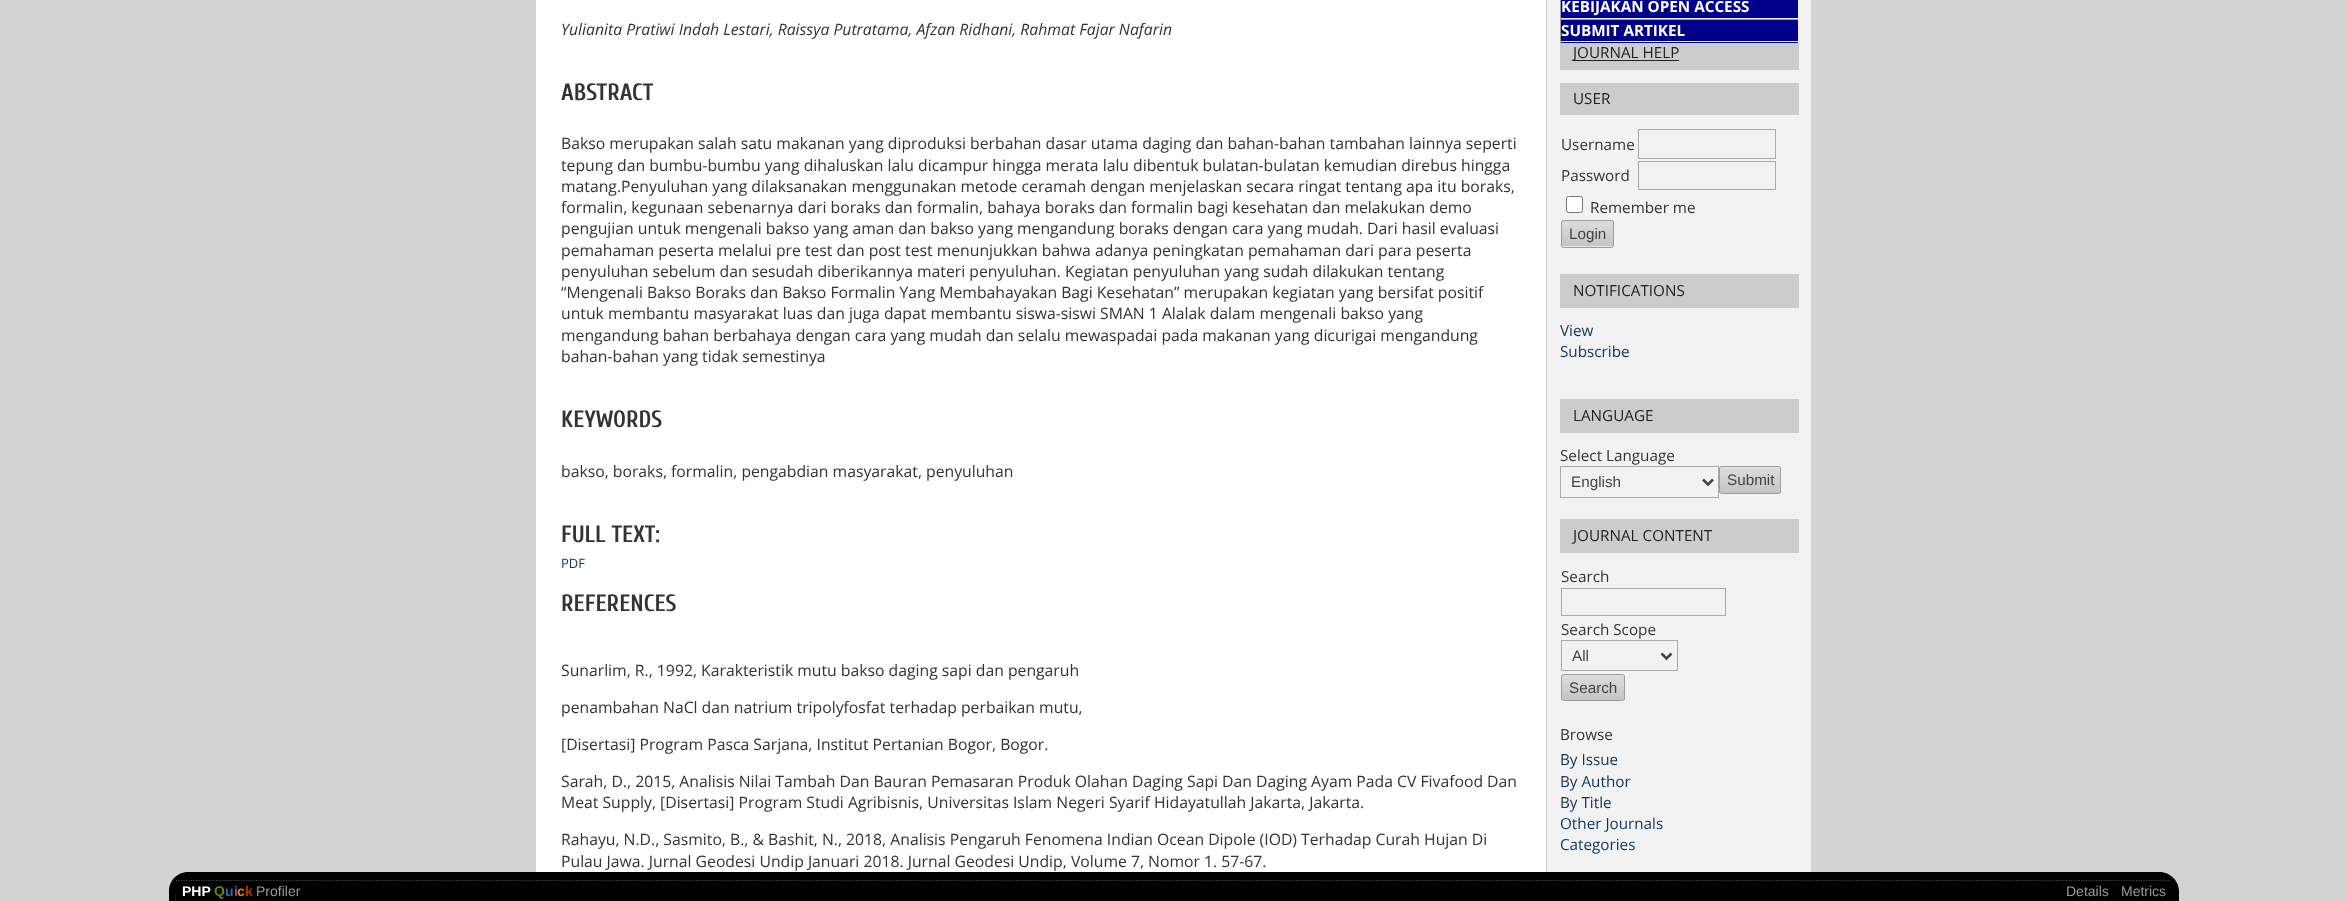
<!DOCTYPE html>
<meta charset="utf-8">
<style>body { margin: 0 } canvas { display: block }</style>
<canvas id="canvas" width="2347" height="901"></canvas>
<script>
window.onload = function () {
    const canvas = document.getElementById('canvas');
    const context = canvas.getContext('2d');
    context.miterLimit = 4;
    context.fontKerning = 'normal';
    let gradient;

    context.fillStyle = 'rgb(211, 211, 211)';
    context.fillRect(0, 0, 2347, 901);
    context.fillStyle = 'rgb(255, 255, 255)';
    context.fillRect(536, 0, 1010, 872);
    context.fillStyle = 'rgb(242, 242, 242)';
    context.fillRect(1547, 0, 264, 872);
    context.fillStyle = 'rgb(204, 204, 204)';
    context.fillRect(1546, 0, 1, 872);
    context.fillStyle = 'rgb(0, 0, 139)';
    context.fillRect(1561, 0, 237, 43);
    context.fillStyle = 'rgb(238, 238, 238)';
    context.fillRect(1798, 0, 1, 19);
    context.fillRect(1560, 18, 239, 1);
    context.fillStyle = 'rgb(159, 159, 159)';
    context.fillRect(1560, 0, 1, 19);
    context.fillRect(1560, 19, 239, 1);
    context.fillStyle = 'rgb(238, 238, 238)';
    context.fillRect(1798, 19, 1, 24);
    context.fillRect(1560, 41, 239, 1);
    context.fillStyle = 'rgb(159, 159, 159)';
    context.fillRect(1560, 19, 1, 24);
    context.fillStyle = 'rgb(204, 204, 204)';
    context.fillRect(1560, 43, 239, 27);
    context.fillStyle = 'rgb(34, 34, 34)';
    context.fillRect(1573, 60, 106, 1);
    context.fillStyle = 'rgb(204, 204, 204)';
    context.fillRect(1560, 83, 239, 32);
    context.strokeStyle = 'rgb(170, 170, 170)';
    context.strokeRect(1638.5, 129.5, 137, 29);
    context.strokeRect(1638.5, 161.5, 137, 28);
    context.fillStyle = 'rgb(255, 255, 255)';
    context.beginPath();
    context.roundRect(1566.5, 196.5, 16, 16, 2);
    context.fill();
    context.strokeStyle = 'rgb(118, 118, 118)';
    context.stroke();
    context.fillStyle = 'rgb(232, 232, 225)';
    context.beginPath();
    context.roundRect(1561, 220, 53, 28, 2.5);
    context.fill();
    gradient = context.createLinearGradient(1588, 221, 1588, 246);
    gradient.addColorStop(0, 'rgb(221, 221, 221)');
    gradient.addColorStop(1, 'rgb(196, 196, 196)');
    context.fillStyle = gradient;
    context.fillRect(1561, 221, 53, 25);
    context.beginPath();
    context.roundRect(1561.5, 220.5, 52, 27, 2);
    context.strokeStyle = 'rgb(157, 157, 157)';
    context.stroke();
    context.fillStyle = 'rgb(204, 204, 204)';
    context.fillRect(1560, 274, 239, 34);
    context.fillRect(1560, 399, 239, 34);
    context.strokeStyle = 'rgb(170, 170, 170)';
    context.strokeRect(1560.5, 466.5, 158, 31);
    context.beginPath();
    context.moveTo(1703, 479.5);
    context.lineTo(1708, 484.5);
    context.lineTo(1713, 479.5);
    context.strokeStyle = 'rgb(68, 68, 68)';
    context.lineWidth = 2.5;
    context.stroke();
    context.fillStyle = 'rgb(232, 232, 225)';
    context.beginPath();
    context.roundRect(1719, 466, 62, 28, 2.5);
    context.fill();
    gradient = context.createLinearGradient(1750, 468, 1750, 493);
    gradient.addColorStop(0, 'rgb(221, 221, 221)');
    gradient.addColorStop(1, 'rgb(196, 196, 196)');
    context.fillStyle = gradient;
    context.fillRect(1719, 468, 62, 25);
    context.beginPath();
    context.roundRect(1719.5, 466.5, 61, 27, 2);
    context.strokeStyle = 'rgb(157, 157, 157)';
    context.lineWidth = 1;
    context.stroke();
    context.fillStyle = 'rgb(204, 204, 204)';
    context.fillRect(1560, 519, 239, 34);
    context.strokeStyle = 'rgb(170, 170, 170)';
    context.strokeRect(1561.5, 588.5, 164, 27);
    context.strokeRect(1561.5, 640.5, 116, 30);
    context.beginPath();
    context.moveTo(1661.5, 653.5);
    context.lineTo(1666.5, 658.5);
    context.lineTo(1671.5, 653.5);
    context.strokeStyle = 'rgb(68, 68, 68)';
    context.lineWidth = 2.5;
    context.stroke();
    context.save();
    context.beginPath();
    context.roundRect(1561, 674, 64, 27, 2.5);
    context.clip();
    gradient = context.createLinearGradient(1593, 675, 1593, 700);
    gradient.addColorStop(0, 'rgb(221, 221, 221)');
    gradient.addColorStop(1, 'rgb(196, 196, 196)');
    context.fillStyle = gradient;
    context.fillRect(1561, 675, 64, 25);
    context.restore();
    context.beginPath();
    context.roundRect(1561.5, 674.5, 63, 26, 2);
    context.strokeStyle = 'rgb(157, 157, 157)';
    context.lineWidth = 1;
    context.stroke();
    context.fillStyle = 'rgb(0, 0, 0)';
    context.beginPath();
    context.moveTo(188, 872);
    context.lineTo(2160, 872);
    context.bezierCurveTo(2170, 872, 2179, 881, 2179, 891);
    context.lineTo(2179, 901);
    context.lineTo(169, 901);
    context.lineTo(169, 891);
    context.bezierCurveTo(169, 881, 177, 872, 188, 872);
    context.closePath();
    context.moveTo(188, 880);
    context.lineTo(2160, 880);
    context.bezierCurveTo(2166, 880, 2171, 885, 2171, 891);
    context.lineTo(2171, 901);
    context.lineTo(176, 901);
    context.bezierCurveTo(176, 893, 175, 880, 188, 880);
    context.closePath();
    context.fill('evenodd');
    context.fillRect(176, 880, 1995, 21);
    context.beginPath();
    context.moveTo(176, 880.5);
    context.lineTo(2171, 880.5);
    context.strokeStyle = 'rgb(68, 68, 68)';
    context.lineWidth = 1.2;
    context.setLineDash([1.25, 1.25]);
    context.stroke();
    context.font = 'italic 15.75px Open Sans';
    context.fillStyle = 'rgb(51, 51, 51)';
    context.fillText('Yulianita Pratiwi Indah Lestari, Raissya Putratama, Afzan Ridhani, Rahmat Fajar Nafarin', 561, 35);
    context.font = 'bold 23.5px Cuprum';
    context.fillText('ABSTRACT', 561, 100);
    context.font = '15.75px Open Sans';
    context.fillText('Bakso merupakan salah satu makanan yang diproduksi berbahan dasar utama daging dan bahan-bahan tambahan lainnya seperti', 561, 149);
    context.fillText('tepung dan bumbu-bumbu yang dihaluskan lalu dicampur hingga merata lalu dibentuk bulatan-bulatan kemudian direbus hingga', 561, 171);
    context.fillText('matang.Penyuluhan yang dilaksanakan menggunakan metode ceramah dengan menjelaskan secara ringat tentang apa itu boraks,', 561, 192);
    context.fillText('formalin, kegunaan sebenarnya dari boraks dan formalin, bahaya boraks dan formalin bagi kesehatan dan melakukan demo', 561, 213);
    context.fillText('pengujian untuk mengenali bakso yang aman dan bakso yang mengandung boraks dengan cara yang mudah. Dari hasil evaluasi', 561, 234);
    context.fillText('pemahaman peserta melalui pre test dan post test menunjukkan bahwa adanya peningkatan pemahaman dari para peserta', 561, 256);
    context.fillText('penyuluhan sebelum dan sesudah diberikannya materi penyuluhan. Kegiatan penyuluhan yang sudah dilakukan tentang', 561, 277);
    context.fillText('“Mengenali Bakso Boraks dan Bakso Formalin Yang Membahayakan Bagi Kesehatan” merupakan kegiatan yang bersifat positif', 561, 298);
    context.fillText('untuk membantu masyarakat luas dan juga dapat membantu siswa-siswi SMAN 1 Alalak dalam mengenali bakso yang', 561, 319);
    context.fillText('mengandung bahan berbahaya dengan cara yang mudah dan selalu mewaspadai pada makanan yang dicurigai mengandung', 561, 341);
    context.fillText('bahan-bahan yang tidak semestinya', 561, 362);
    context.font = 'bold 23.5px Cuprum';
    context.fillText('KEYWORDS', 561, 427);
    context.font = '15.75px Open Sans';
    context.fillText('bakso, boraks, formalin, pengabdian masyarakat, penyuluhan', 561, 477);
    context.font = 'bold 23.5px Cuprum';
    context.fillText('FULL TEXT:', 561, 542);
    context.font = '13px Open Sans';
    context.fillStyle = 'rgb(13, 53, 94)';
    context.fillText('PDF', 561, 568);
    context.font = 'bold 23.5px Cuprum';
    context.fillStyle = 'rgb(51, 51, 51)';
    context.fillText('REFERENCES', 561, 611);
    context.font = '15.75px Open Sans';
    context.fillText('Sunarlim, R., 1992, Karakteristik mutu bakso daging sapi dan pengaruh', 561, 676);
    context.fillText('penambahan NaCl dan natrium tripolyfosfat terhadap perbaikan mutu,', 561, 713);
    context.fillText('[Disertasi] Program Pasca Sarjana, Institut Pertanian Bogor, Bogor.', 561, 750);
    context.fillText('Sarah, D., 2015, Analisis Nilai Tambah Dan Bauran Pemasaran Produk Olahan Daging Sapi Dan Daging Ayam Pada CV Fivafood Dan', 561, 787);
    context.fillText('Meat Supply, [Disertasi] Program Studi Agribisnis, Universitas Islam Negeri Syarif Hidayatullah Jakarta, Jakarta.', 561, 808);
    context.fillText('Rahayu, N.D., Sasmito, B., & Bashit, N., 2018, Analisis Pengaruh Fenomena Indian Ocean Dipole (IOD) Terhadap Curah Hujan Di', 561, 845);
    context.fillText('Pulau Jawa. Jurnal Geodesi Undip Januari 2018. Jurnal Geodesi Undip, Volume 7, Nomor 1. 57-67.', 561, 867);
    context.font = 'bold 15.25px Open Sans';
    context.fillStyle = 'rgb(255, 255, 255)';
    context.fillText('KEBIJAKAN OPEN ACCESS', 1561, 12);
    context.fillText('SUBMIT ARTIKEL', 1561, 36);
    context.font = '15.25px Open Sans';
    context.fillStyle = 'rgb(34, 34, 34)';
    context.fillText('JOURNAL HELP', 1573, 58);
    context.fillText('USER', 1573, 104);
    context.fillStyle = 'rgb(51, 51, 51)';
    context.fillText('Username', 1561, 150);
    context.fillText('Password', 1561, 181);
    context.fillText('Remember me', 1590, 213);
    context.font = '15.25px Liberation Sans';
    context.fillStyle = 'rgb(68, 68, 68)';
    context.fillText('Login', 1569, 239);
    context.font = '15.25px Open Sans';
    context.fillStyle = 'rgb(34, 34, 34)';
    context.fillText('NOTIFICATIONS', 1573, 296);
    context.fillStyle = 'rgb(13, 53, 94)';
    context.fillText('View', 1560, 336);
    context.fillText('Subscribe', 1560, 357);
    context.fillStyle = 'rgb(34, 34, 34)';
    context.fillText('LANGUAGE', 1573, 421);
    context.fillStyle = 'rgb(51, 51, 51)';
    context.fillText('Select Language', 1560, 461);
    context.font = '15.25px Liberation Sans';
    context.fillStyle = 'rgb(68, 68, 68)';
    context.fillText('English', 1571, 487);
    context.fillText('Submit', 1727, 485);
    context.font = '15.25px Open Sans';
    context.fillStyle = 'rgb(34, 34, 34)';
    context.fillText('JOURNAL CONTENT', 1573, 541);
    context.fillStyle = 'rgb(51, 51, 51)';
    context.fillText('Search', 1561, 582);
    context.fillText('Search Scope', 1561, 635);
    context.font = '15.25px Liberation Sans';
    context.fillStyle = 'rgb(68, 68, 68)';
    context.fillText('All', 1572, 661);
    context.fillText('Search', 1569, 693);
    context.font = '15.25px Open Sans';
    context.fillStyle = 'rgb(51, 51, 51)';
    context.fillText('Browse', 1560, 740);
    context.fillStyle = 'rgb(13, 53, 94)';
    context.fillText('By Issue', 1560, 765);
    context.fillText('By Author', 1560, 787);
    context.fillText('By Title', 1560, 808);
    context.fillText('Other Journals', 1560, 829);
    context.fillText('Categories', 1560, 850);
    context.font = 'bold 14px Liberation Sans';
    context.fillStyle = 'rgb(255, 255, 255)';
    context.fillText('PHP', 182, 896);
    context.fillStyle = 'rgb(88, 142, 19)';
    context.fillText('Q', 214, 896);
    context.fillStyle = 'rgb(55, 105, 160)';
    context.fillText('u', 225, 896);
    context.fillStyle = 'rgb(149, 63, 161)';
    context.fillText('i', 234, 896);
    context.fillStyle = 'rgb(210, 140, 0)';
    context.fillText('c', 237, 896);
    context.fillStyle = 'rgb(183, 47, 9)';
    context.fillText('k', 245, 896);
    context.font = '14px Liberation Sans';
    context.fillStyle = 'rgb(153, 153, 153)';
    context.fillText('Profiler', 256, 896);
    context.fillText('Details', 2066, 896);
    context.fillText('Metrics', 2121, 896);
};
</script>
